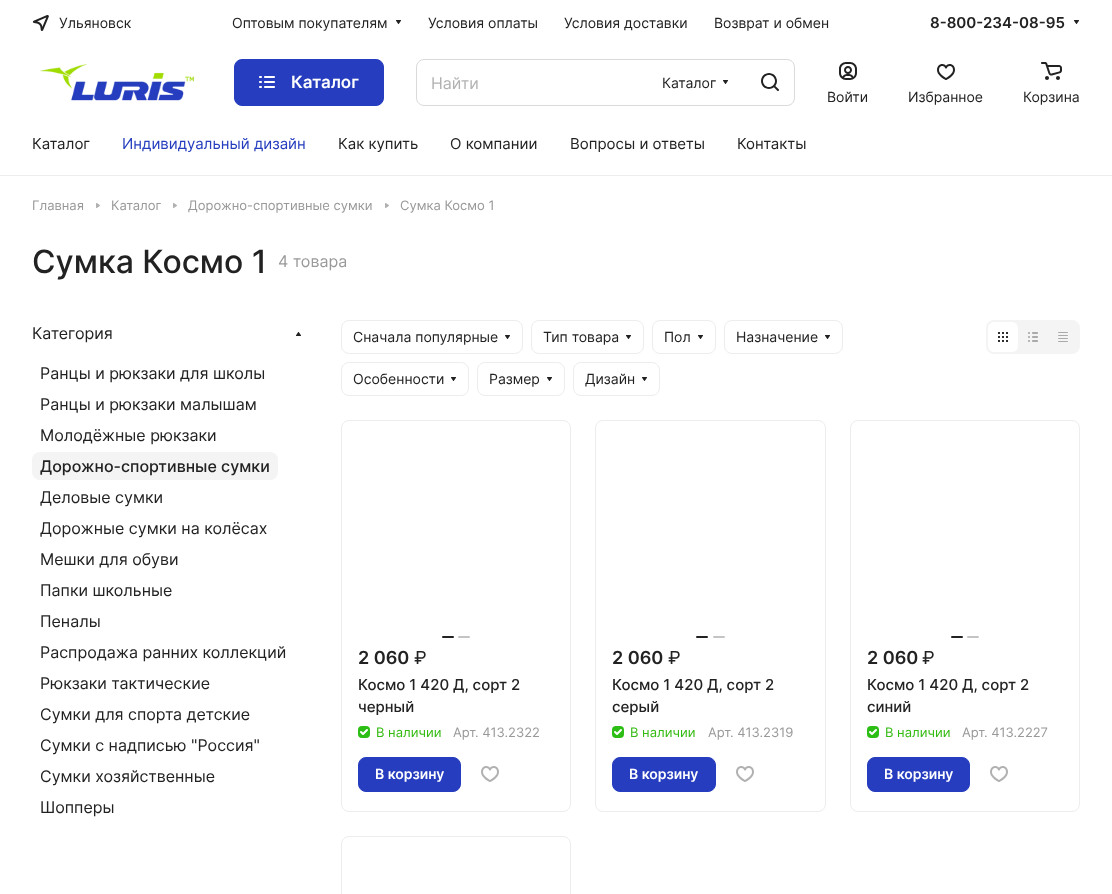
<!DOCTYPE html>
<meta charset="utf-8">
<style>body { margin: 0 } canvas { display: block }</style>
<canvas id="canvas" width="1112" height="894"></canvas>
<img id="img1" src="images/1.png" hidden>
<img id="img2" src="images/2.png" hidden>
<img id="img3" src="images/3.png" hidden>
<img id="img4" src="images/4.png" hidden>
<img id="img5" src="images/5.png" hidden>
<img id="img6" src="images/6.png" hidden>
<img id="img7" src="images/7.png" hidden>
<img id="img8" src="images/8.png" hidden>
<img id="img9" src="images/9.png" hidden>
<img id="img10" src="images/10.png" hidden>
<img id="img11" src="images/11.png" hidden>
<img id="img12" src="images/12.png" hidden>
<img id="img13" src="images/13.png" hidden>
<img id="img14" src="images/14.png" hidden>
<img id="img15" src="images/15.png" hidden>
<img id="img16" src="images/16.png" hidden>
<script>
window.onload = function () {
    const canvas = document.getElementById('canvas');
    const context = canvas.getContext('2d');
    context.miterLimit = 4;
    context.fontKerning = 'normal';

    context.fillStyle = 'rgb(255, 255, 255)';
    context.fillRect(0, 0, 1112, 894);
    context.fillStyle = 'rgb(237, 237, 237)';
    context.fillRect(0, 175, 1112, 1);
    context.drawImage(document.getElementById('img1'), 32, 15, 17, 16);
    context.drawImage(document.getElementById('img2'), 396, 20, 5, 4);
    context.drawImage(document.getElementById('img2'), 1074, 20, 5, 4);
    context.drawImage(document.getElementById('img3'), 40, 64, 154, 37);
    context.fillStyle = 'rgb(37, 61, 190)';
    context.beginPath();
    context.roundRect(234.5, 59.5, 149, 46, 7.5);
    context.fill();
    context.strokeStyle = 'rgb(37, 61, 190)';
    context.stroke();
    context.drawImage(document.getElementById('img4'), 259, 76, 16, 12);
    context.beginPath();
    context.roundRect(416.5, 59.5, 378, 46, 7.5);
    context.strokeStyle = 'rgb(218, 218, 218)';
    context.stroke();
    context.drawImage(document.getElementById('img2'), 723, 80, 5, 4);
    context.drawImage(document.getElementById('img5'), 761, 73, 18, 18);
    context.drawImage(document.getElementById('img6'), 839, 62, 18, 18);
    context.drawImage(document.getElementById('img7'), 937, 64, 18, 16);
    context.drawImage(document.getElementById('img8'), 1041, 62, 21, 18);
    context.drawImage(document.getElementById('img9'), 96, 203, 4, 5);
    context.drawImage(document.getElementById('img9'), 173, 203, 4, 5);
    context.drawImage(document.getElementById('img9'), 385, 203, 4, 5);
    context.drawImage(document.getElementById('img10'), 296, 332, 5, 4);
    context.fillStyle = 'rgb(244, 244, 244)';
    context.beginPath();
    context.roundRect(32, 452, 246, 28, 8);
    context.fill();
    context.beginPath();
    context.roundRect(341.5, 320.5, 181, 33, 7.5);
    context.strokeStyle = 'rgb(237, 237, 237)';
    context.stroke();
    context.drawImage(document.getElementById('img11'), 505, 335, 5, 4);
    context.beginPath();
    context.roundRect(531.5, 320.5, 112, 33, 7.5);
    context.stroke();
    context.drawImage(document.getElementById('img2'), 626, 335, 5, 4);
    context.beginPath();
    context.roundRect(652.5, 320.5, 63, 33, 7.5);
    context.stroke();
    context.drawImage(document.getElementById('img2'), 698, 335, 5, 4);
    context.beginPath();
    context.roundRect(724.5, 320.5, 118, 33, 7.5);
    context.stroke();
    context.drawImage(document.getElementById('img2'), 825, 335, 5, 4);
    context.beginPath();
    context.roundRect(341.5, 362.5, 127, 33, 7.5);
    context.stroke();
    context.drawImage(document.getElementById('img2'), 451, 377, 5, 4);
    context.beginPath();
    context.roundRect(477.5, 362.5, 87, 33, 7.5);
    context.stroke();
    context.drawImage(document.getElementById('img2'), 547, 377, 5, 4);
    context.beginPath();
    context.roundRect(573.5, 362.5, 86, 33, 7.5);
    context.stroke();
    context.drawImage(document.getElementById('img2'), 642, 377, 5, 4);
    context.beginPath();
    context.roundRect(987, 321, 92, 32, 7);
    context.fill();
    context.strokeStyle = 'rgb(244, 244, 244)';
    context.lineWidth = 2;
    context.stroke();
    context.fillStyle = 'rgb(255, 255, 255)';
    context.beginPath();
    context.roundRect(988, 322, 30, 30, 6);
    context.fill();
    context.drawImage(document.getElementById('img12'), 998, 332, 10, 10);
    context.drawImage(document.getElementById('img13'), 1028, 332, 10, 10);
    context.drawImage(document.getElementById('img14'), 1058, 332, 10, 10);
    context.beginPath();
    context.roundRect(341.5, 420.5, 229, 391, 7.5);
    context.strokeStyle = 'rgb(237, 237, 237)';
    context.lineWidth = 1;
    context.stroke();
    context.fillStyle = 'rgb(34, 34, 34)';
    context.beginPath();
    context.roundRect(442, 636, 12, 2, 1);
    context.fill();
    context.fillStyle = 'rgb(196, 196, 196)';
    context.beginPath();
    context.roundRect(458, 636, 12, 2, 1);
    context.fill();
    context.drawImage(document.getElementById('img15'), 358, 726, 12, 12);
    context.fillStyle = 'rgb(37, 61, 190)';
    context.beginPath();
    context.roundRect(358.5, 757.5, 102, 34, 7.5);
    context.fill();
    context.strokeStyle = 'rgb(37, 61, 190)';
    context.stroke();
    context.drawImage(document.getElementById('img16'), 481, 766, 18, 16);
    context.beginPath();
    context.roundRect(595.5, 420.5, 230, 391, 7.5);
    context.strokeStyle = 'rgb(237, 237, 237)';
    context.stroke();
    context.fillStyle = 'rgb(34, 34, 34)';
    context.beginPath();
    context.roundRect(696, 636, 12, 2, 1);
    context.fill();
    context.fillStyle = 'rgb(196, 196, 196)';
    context.beginPath();
    context.roundRect(713, 636, 12, 2, 1);
    context.fill();
    context.drawImage(document.getElementById('img15'), 612, 726, 12, 12);
    context.fillStyle = 'rgb(37, 61, 190)';
    context.beginPath();
    context.roundRect(612.5, 757.5, 103, 34, 7.5);
    context.fill();
    context.strokeStyle = 'rgb(37, 61, 190)';
    context.stroke();
    context.drawImage(document.getElementById('img16'), 736, 766, 18, 16);
    context.beginPath();
    context.roundRect(850.5, 420.5, 229, 391, 7.5);
    context.strokeStyle = 'rgb(237, 237, 237)';
    context.stroke();
    context.fillStyle = 'rgb(34, 34, 34)';
    context.beginPath();
    context.roundRect(951, 636, 12, 2, 1);
    context.fill();
    context.fillStyle = 'rgb(196, 196, 196)';
    context.beginPath();
    context.roundRect(967, 636, 12, 2, 1);
    context.fill();
    context.drawImage(document.getElementById('img15'), 867, 726, 12, 12);
    context.fillStyle = 'rgb(37, 61, 190)';
    context.beginPath();
    context.roundRect(867.5, 757.5, 102, 34, 7.5);
    context.fill();
    context.strokeStyle = 'rgb(37, 61, 190)';
    context.stroke();
    context.drawImage(document.getElementById('img16'), 990, 766, 18, 16);
    context.beginPath();
    context.roundRect(341.5, 836.5, 229, 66, 7.5);
    context.strokeStyle = 'rgb(237, 237, 237)';
    context.stroke();
    context.font = '14px Inter';
    context.fillStyle = 'rgb(34, 34, 34)';
    context.fillText('Ульяновск', 59, 28);
    context.fillText('Оптовым покупателям', 232, 28);
    context.fillText('Условия оплаты', 428, 28);
    context.fillText('Условия доставки', 564, 28);
    context.fillText('Возврат и обмен', 714, 28);
    context.font = '600 15px Inter';
    context.fillText('8-800-234-08-95', 930, 28);
    context.font = '600 17px Inter';
    context.fillStyle = 'rgb(255, 255, 255)';
    context.fillText('Каталог', 291, 88);
    context.font = '16px Inter';
    context.fillStyle = 'rgb(178, 178, 178)';
    context.fillText('Найти', 431, 89);
    context.font = '14px Inter';
    context.fillStyle = 'rgb(34, 34, 34)';
    context.fillText('Каталог', 662, 88);
    context.fillText('Войти', 827, 102);
    context.fillText('Избранное', 908, 102);
    context.fillText('Корзина', 1023, 102);
    context.font = '15px Inter';
    context.fillText('Каталог', 32, 149);
    context.fillStyle = 'rgb(37, 61, 190)';
    context.fillText('Индивидуальный дизайн', 122, 149);
    context.fillStyle = 'rgb(34, 34, 34)';
    context.fillText('Как купить', 338, 149);
    context.fillText('О компании', 450, 149);
    context.fillText('Вопросы и ответы', 570, 149);
    context.fillText('Контакты', 737, 149);
    context.font = '13px Inter';
    context.fillStyle = 'rgb(153, 153, 153)';
    context.fillText('Главная', 32, 210);
    context.fillText('Каталог', 111, 210);
    context.fillText('Дорожно-спортивные сумки', 188, 210);
    context.fillText('Сумка Космо 1', 400, 210);
    context.font = '500 32px Inter';
    context.fillStyle = 'rgb(34, 34, 34)';
    context.fillText('Сумка Космо 1', 32, 273);
    context.font = '16px Inter';
    context.fillStyle = 'rgb(153, 153, 153)';
    context.fillText('4 товара', 278, 267);
    context.fillStyle = 'rgb(34, 34, 34)';
    context.fillText('Категория', 32, 339);
    context.fillText('Ранцы и рюкзаки для школы', 40, 379);
    context.fillText('Ранцы и рюкзаки малышам', 40, 410);
    context.fillText('Молодёжные рюкзаки', 40, 441);
    context.font = '500 16px Inter';
    context.fillText('Дорожно-спортивные сумки', 40, 472);
    context.font = '16px Inter';
    context.fillText('Деловые сумки', 40, 503);
    context.fillText('Дорожные сумки на колёсах', 40, 534);
    context.fillText('Мешки для обуви', 40, 565);
    context.fillText('Папки школьные', 40, 596);
    context.fillText('Пеналы', 40, 627);
    context.fillText('Распродажа ранних коллекций', 40, 658);
    context.fillText('Рюкзаки тактические', 40, 689);
    context.fillText('Сумки для спорта детские', 40, 720);
    context.fillText('Сумки с надписью "Россия"', 40, 751);
    context.fillText('Сумки хозяйственные', 40, 782);
    context.fillText('Шопперы', 40, 813);
    context.font = '14px Inter';
    context.fillText('Сначала популярные', 353, 342);
    context.fillText('Тип товара', 543, 342);
    context.fillText('Пол', 664, 342);
    context.fillText('Назначение', 736, 342);
    context.fillText('Особенности', 353, 384);
    context.fillText('Размер', 489, 384);
    context.fillText('Дизайн', 585, 384);
    context.font = '600 18px Inter';
    context.fillText('2 060', 358, 664);
    context.font = '18px "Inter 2"';
    context.fillText('₽', 414, 664);
    context.font = '500 15px Inter';
    context.fillText('Космо 1 420 Д, сорт 2', 358, 690);
    context.fillText('черный', 358, 712);
    context.font = '13px Inter';
    context.fillStyle = 'rgb(51, 187, 17)';
    context.fillText('В наличии', 376, 737);
    context.fillStyle = 'rgb(153, 153, 153)';
    context.fillText('Арт. 413.2322', 453, 737);
    context.font = '600 14px Inter';
    context.fillStyle = 'rgb(255, 255, 255)';
    context.fillText('В корзину', 375, 779);
    context.font = '600 18px Inter';
    context.fillStyle = 'rgb(34, 34, 34)';
    context.fillText('2 060', 612, 664);
    context.font = '18px "Inter 2"';
    context.fillText('₽', 668, 664);
    context.font = '500 15px Inter';
    context.fillText('Космо 1 420 Д, сорт 2', 612, 690);
    context.fillText('серый', 612, 712);
    context.font = '13px Inter';
    context.fillStyle = 'rgb(51, 187, 17)';
    context.fillText('В наличии', 630, 737);
    context.fillStyle = 'rgb(153, 153, 153)';
    context.fillText('Арт. 413.2319', 708, 737);
    context.font = '600 14px Inter';
    context.fillStyle = 'rgb(255, 255, 255)';
    context.fillText('В корзину', 629, 779);
    context.font = '600 18px Inter';
    context.fillStyle = 'rgb(34, 34, 34)';
    context.fillText('2 060', 867, 664);
    context.font = '18px "Inter 2"';
    context.fillText('₽', 922, 664);
    context.font = '500 15px Inter';
    context.fillText('Космо 1 420 Д, сорт 2', 867, 690);
    context.fillText('синий', 867, 712);
    context.font = '13px Inter';
    context.fillStyle = 'rgb(51, 187, 17)';
    context.fillText('В наличии', 885, 737);
    context.fillStyle = 'rgb(153, 153, 153)';
    context.fillText('Арт. 413.2227', 962, 737);
    context.font = '600 14px Inter';
    context.fillStyle = 'rgb(255, 255, 255)';
    context.fillText('В корзину', 884, 779);
};
</script>
